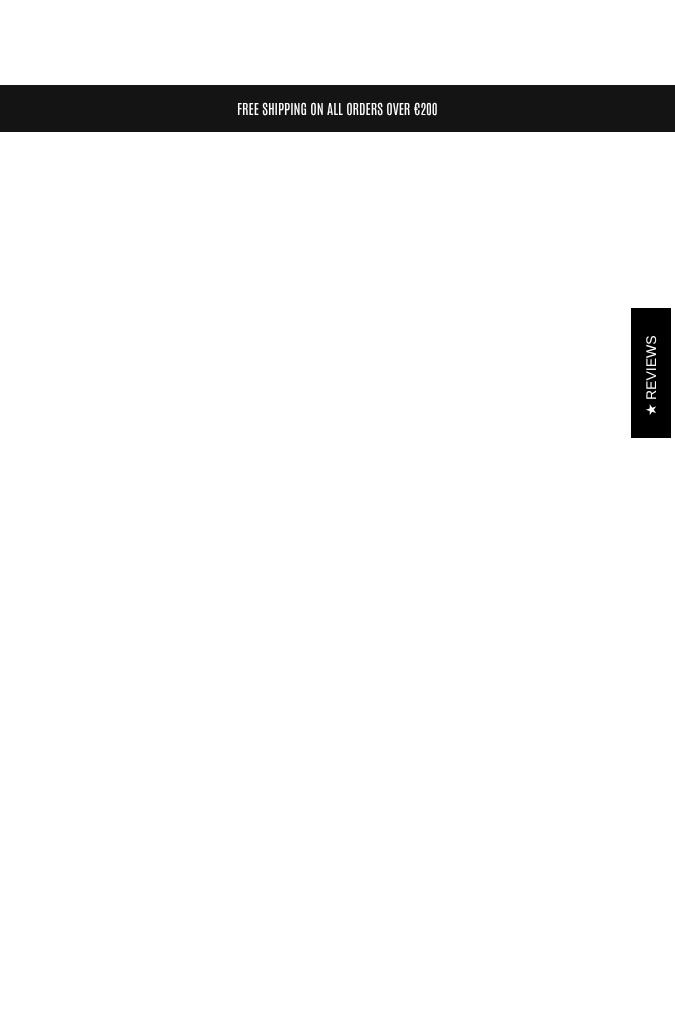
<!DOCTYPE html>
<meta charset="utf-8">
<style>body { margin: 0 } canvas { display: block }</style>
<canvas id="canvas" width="675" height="1034"></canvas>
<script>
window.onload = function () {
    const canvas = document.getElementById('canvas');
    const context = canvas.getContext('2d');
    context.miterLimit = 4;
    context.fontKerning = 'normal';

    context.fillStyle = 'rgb(255, 255, 255)';
    context.fillRect(0, 0, 675, 1034);
    context.fillStyle = 'rgb(20, 20, 20)';
    context.fillRect(0, 85, 675, 47);
    context.fillStyle = 'rgb(0, 0, 0)';
    context.fillRect(631, 308, 40, 130);
    context.font = '14px Antonio';
    context.fillStyle = 'rgb(255, 255, 255)';
    context.fillText('FREE SHIPPING ON ALL ORDERS OVER €200', 237, 115);
    context.font = '14px Liberation Sans';
    context.save();
    context.translate(656, 400);
    context.rotate(-90 * Math.PI / 180);
    context.fillText('REVIEWS', 0, 0);
    context.restore();
    context.font = '14px DejaVu Sans';
    context.save();
    context.translate(656, 416);
    context.rotate(-90 * Math.PI / 180);
    context.fillText('★', 0, 0);
    context.restore();
};
</script>
